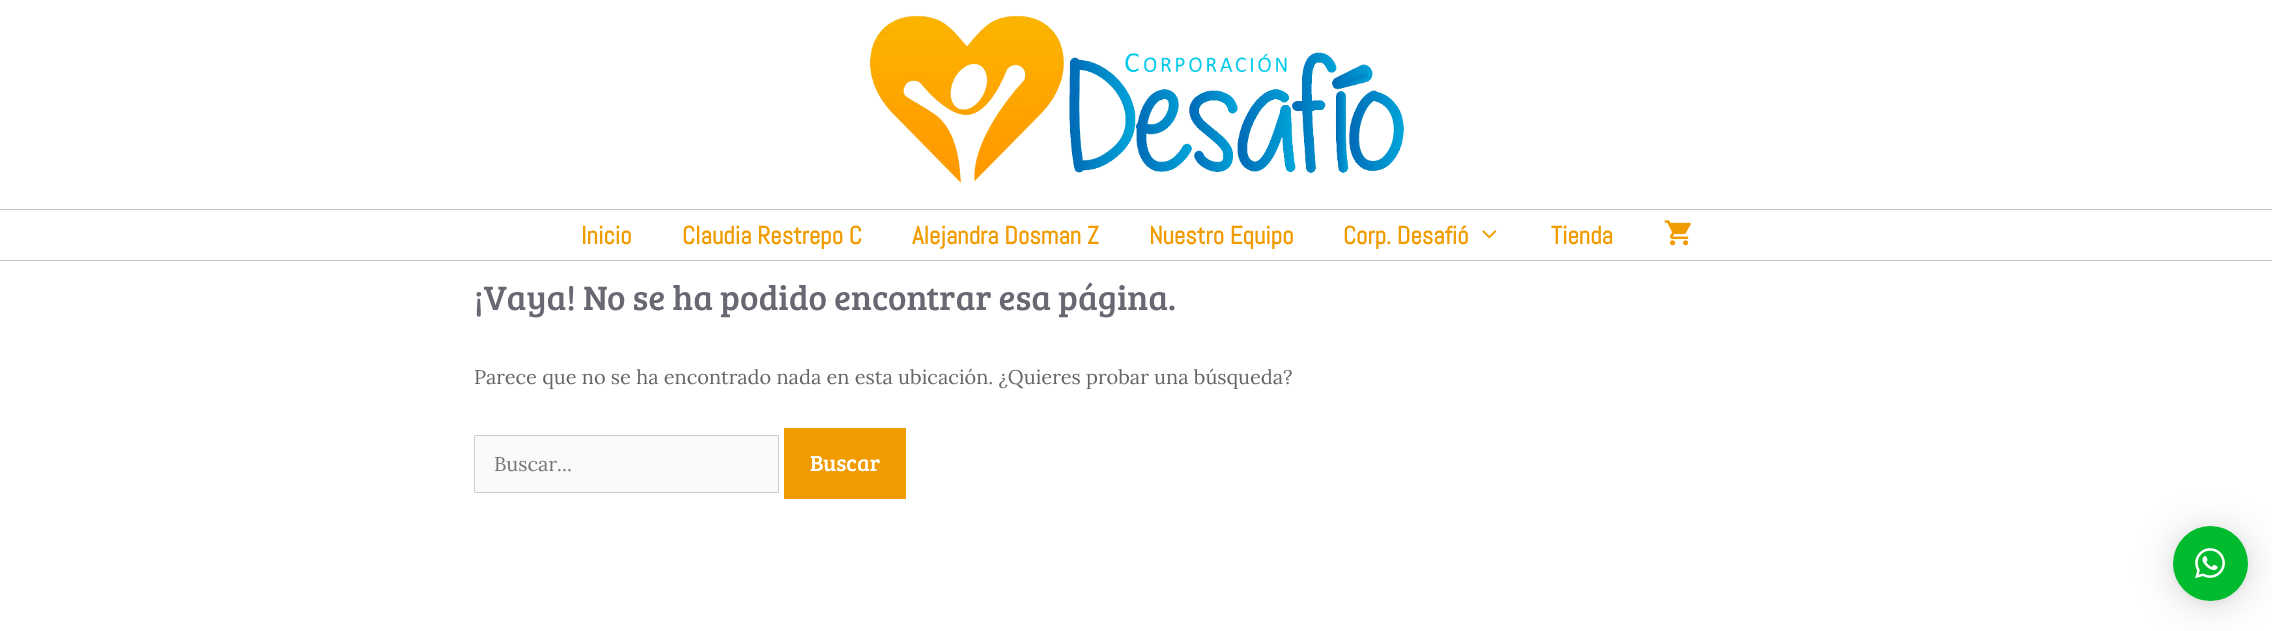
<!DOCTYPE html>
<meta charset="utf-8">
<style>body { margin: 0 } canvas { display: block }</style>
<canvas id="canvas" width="2272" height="631"></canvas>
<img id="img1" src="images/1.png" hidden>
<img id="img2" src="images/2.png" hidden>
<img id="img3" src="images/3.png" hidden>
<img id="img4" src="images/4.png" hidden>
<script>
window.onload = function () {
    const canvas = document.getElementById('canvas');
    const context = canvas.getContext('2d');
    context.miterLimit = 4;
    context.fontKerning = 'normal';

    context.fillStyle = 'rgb(255, 255, 255)';
    context.fillRect(0, 0, 2272, 631);
    context.drawImage(document.getElementById('img1'), 869, 15, 535, 168);
    context.fillStyle = 'rgb(196, 196, 196)';
    context.fillRect(0, 209, 2272, 1);
    context.fillRect(0, 260, 2272, 1);
    context.drawImage(document.getElementById('img2'), 1482, 230, 15, 9);
    context.drawImage(document.getElementById('img3'), 1664, 220, 27, 26);
    context.fillStyle = 'rgb(250, 250, 250)';
    context.beginPath();
    context.rect(474.5, 435.5, 304, 57);
    context.fill();
    context.strokeStyle = 'rgb(204, 204, 204)';
    context.stroke();
    context.fillStyle = 'rgb(240, 155, 0)';
    context.fillRect(784, 428, 122, 71);
    context.fillStyle = 'rgba(0, 0, 0, 0.16)';
    context.filter = 'blur(20px)';
    context.beginPath();
    context.roundRect(2173, 529, 75, 75, 37.5);
    context.fill();
    context.filter = 'none';
    context.fillStyle = 'rgba(0, 0, 0, 0.06)';
    context.filter = 'blur(4px)';
    context.beginPath();
    context.roundRect(2173, 528, 75, 75, 37.5);
    context.fill();
    context.filter = 'none';
    context.fillStyle = 'rgb(0, 187, 45)';
    context.beginPath();
    context.arc(2210.5, 563.5, 37.5, 0, 2 * Math.PI);
    context.fill();
    context.drawImage(document.getElementById('img4'), 2195, 548, 30, 31);
    context.font = 'bold 25px Abel';
    context.fillStyle = 'rgb(240, 155, 0)';
    context.fillText('Inicio', 581, 244);
    context.fillText('Claudia Restrepo C', 682, 244);
    context.fillText('Alejandra Dosman Z', 912, 244);
    context.fillText('Nuestro Equipo', 1149, 244);
    context.fillText('Corp. Desafió', 1343, 244);
    context.fillText('Tienda', 1551, 244);
    context.font = '35px Bree Serif';
    context.fillStyle = 'rgb(103, 104, 114)';
    context.fillText('¡Vaya! No se ha podido encontrar esa página.', 474, 310);
    context.font = '20px Lora';
    context.fillStyle = 'rgb(102, 102, 102)';
    context.fillText('Parece que no se ha encontrado nada en esta ubicación. ¿Quieres probar una búsqueda?', 474, 384);
    context.fillStyle = 'rgb(117, 117, 117)';
    context.fillText('Buscar...', 494, 471);
    context.font = '22.5px Bree Serif';
    context.fillStyle = 'rgb(255, 255, 255)';
    context.fillText('Buscar', 810, 471);
};
</script>
